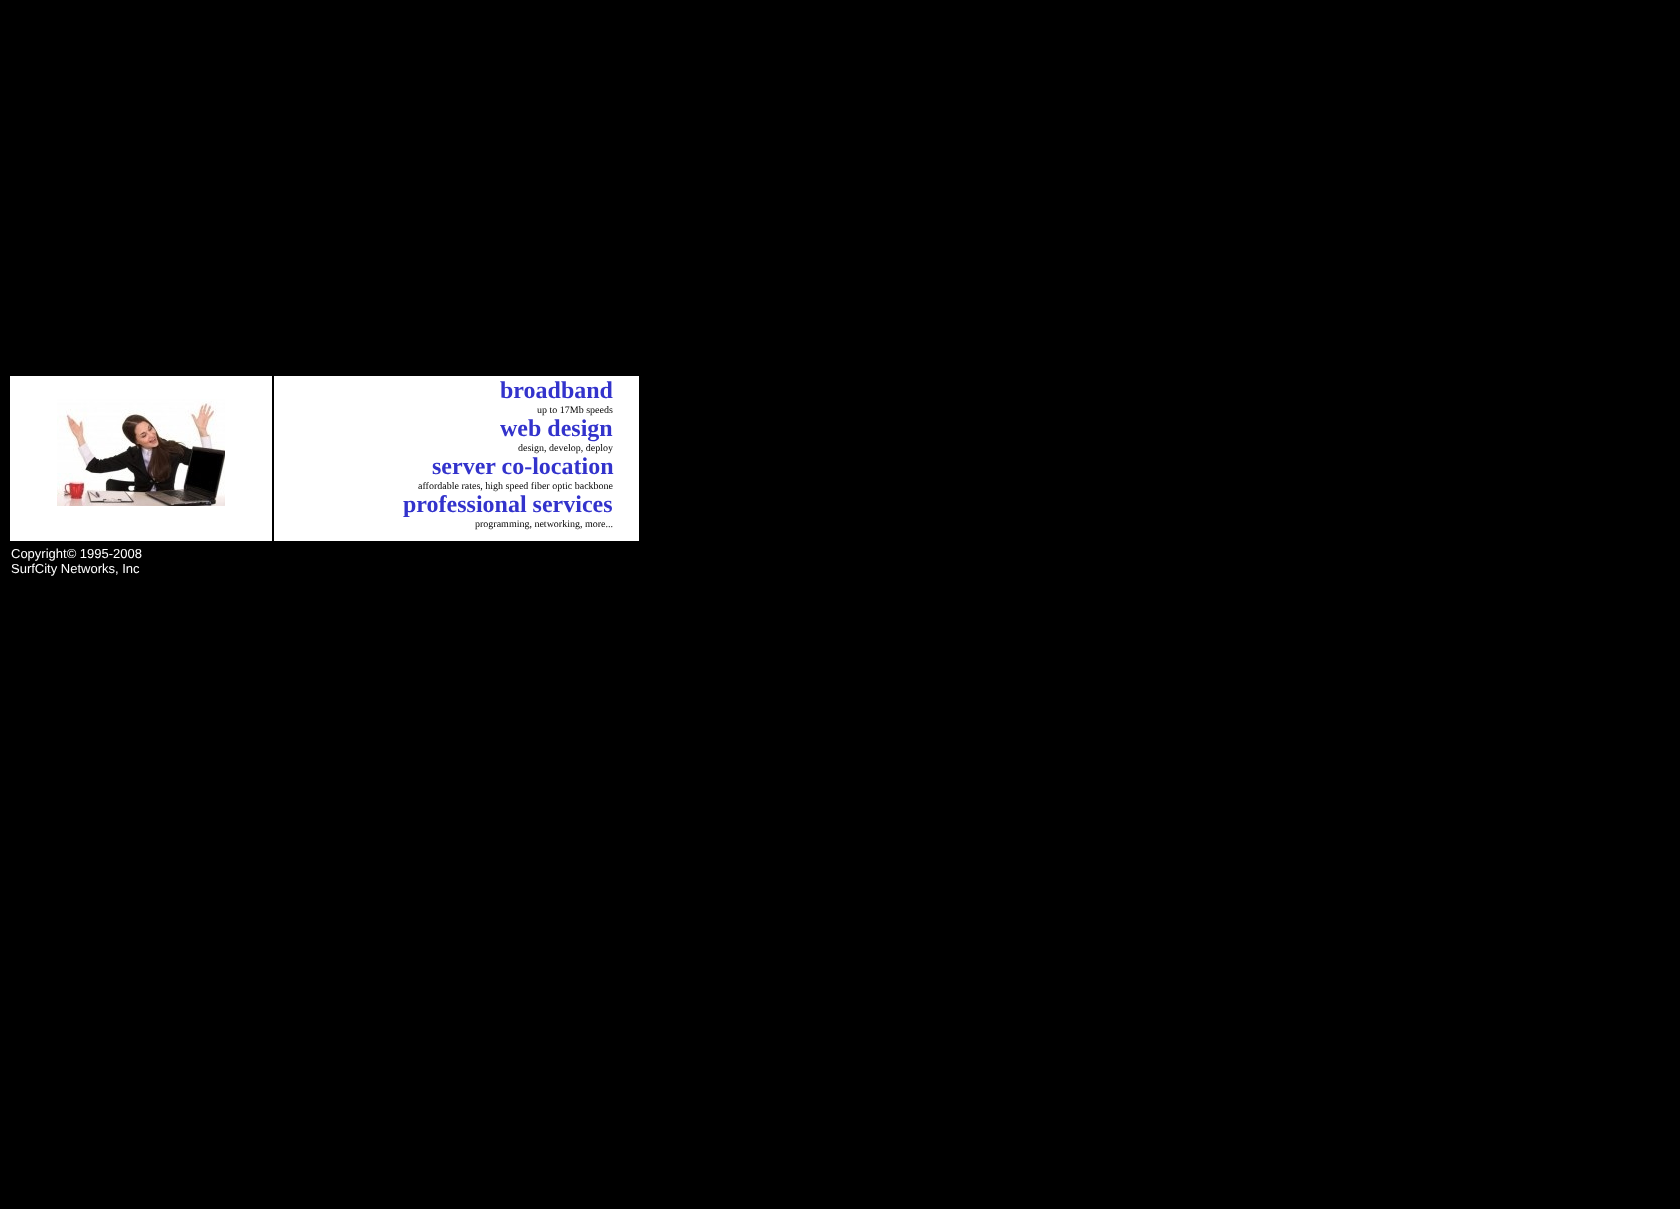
<!DOCTYPE html>
<meta charset="utf-8">
<style>body { margin: 0 } canvas { display: block }</style>
<canvas id="canvas" width="1680" height="1209"></canvas>
<img id="img1" src="images/1.png" hidden>
<script>
window.onload = function () {
    const canvas = document.getElementById('canvas');
    const context = canvas.getContext('2d');
    context.miterLimit = 4;
    context.fontKerning = 'normal';

    context.fillStyle = 'rgb(0, 0, 0)';
    context.fillRect(0, 0, 1680, 1209);
    context.fillStyle = 'rgb(255, 255, 255)';
    context.fillRect(10, 376, 262, 165);
    context.drawImage(document.getElementById('img1'), 57, 399, 168, 107);
    context.fillRect(274, 376, 365, 165);
    context.font = 'bold 24px Liberation Serif';
    context.fillStyle = 'rgb(51, 51, 204)';
    context.fillText('broadband', 500, 398);
    context.font = '10px Liberation Serif';
    context.fillStyle = 'rgb(0, 0, 0)';
    context.fillText('up to 17Mb speeds', 537, 413);
    context.font = 'bold 24px Liberation Serif';
    context.fillStyle = 'rgb(51, 51, 204)';
    context.fillText('web design', 500, 436);
    context.font = '10px Liberation Serif';
    context.fillStyle = 'rgb(0, 0, 0)';
    context.fillText('design, develop, deploy', 518, 451);
    context.font = 'bold 24px Liberation Serif';
    context.fillStyle = 'rgb(51, 51, 204)';
    context.fillText('server co-location', 432, 474);
    context.font = '10px Liberation Serif';
    context.fillStyle = 'rgb(0, 0, 0)';
    context.fillText('affordable rates, high speed fiber optic backbone', 418, 489);
    context.font = 'bold 24px Liberation Serif';
    context.fillStyle = 'rgb(51, 51, 204)';
    context.fillText('professional services', 403, 512);
    context.font = '10px Liberation Serif';
    context.fillStyle = 'rgb(0, 0, 0)';
    context.fillText('programming, networking, more...', 475, 527);
    context.font = '13px Liberation Sans';
    context.fillStyle = 'rgb(255, 255, 255)';
    context.fillText('Copyright© 1995-2008', 11, 558);
    context.fillText('SurfCity Networks, Inc', 11, 573);
};
</script>
